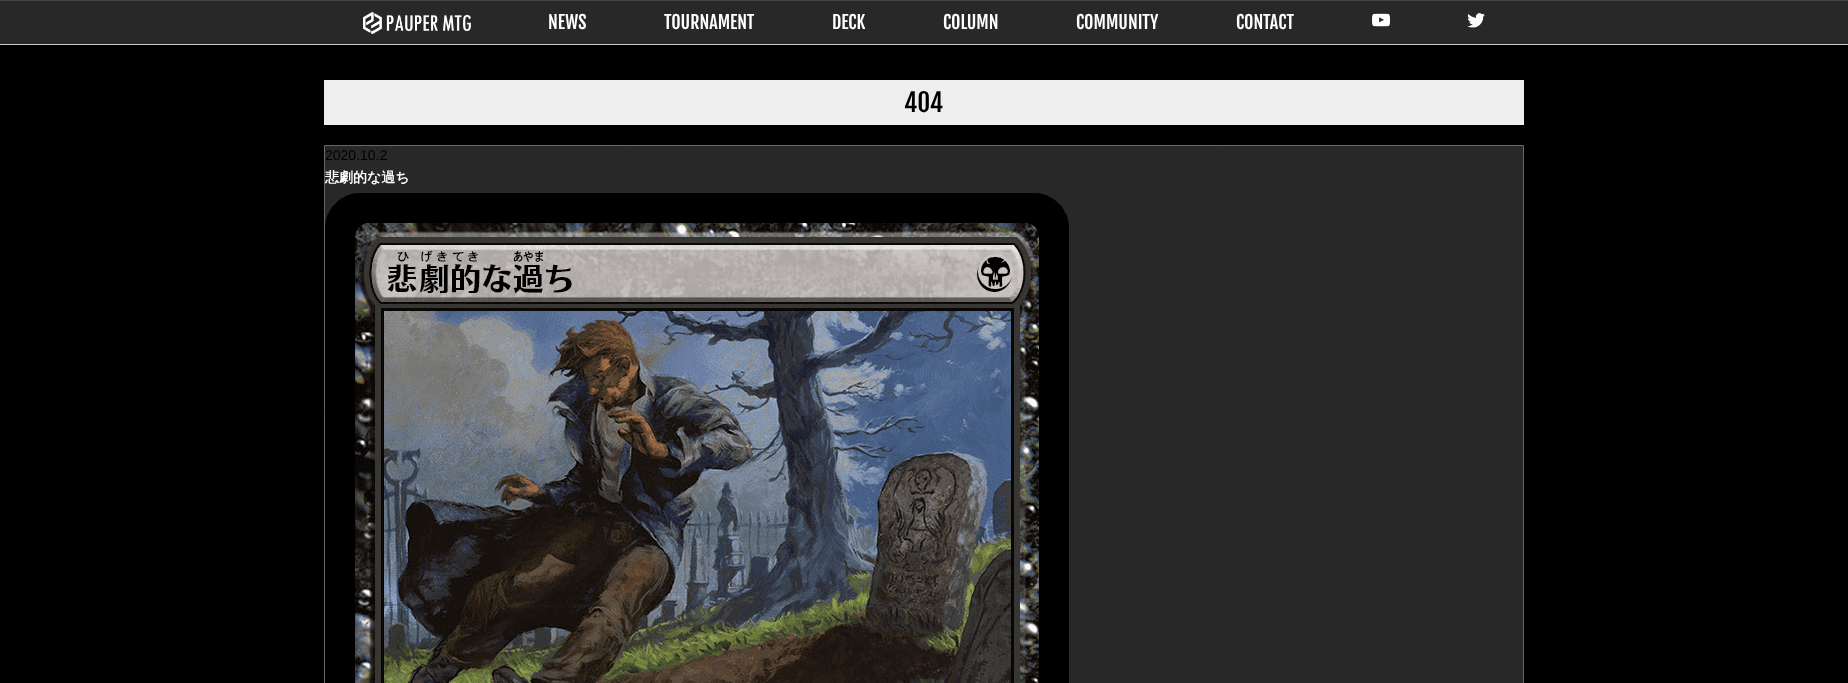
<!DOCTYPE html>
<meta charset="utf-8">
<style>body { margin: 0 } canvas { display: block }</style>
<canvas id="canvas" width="1848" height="683"></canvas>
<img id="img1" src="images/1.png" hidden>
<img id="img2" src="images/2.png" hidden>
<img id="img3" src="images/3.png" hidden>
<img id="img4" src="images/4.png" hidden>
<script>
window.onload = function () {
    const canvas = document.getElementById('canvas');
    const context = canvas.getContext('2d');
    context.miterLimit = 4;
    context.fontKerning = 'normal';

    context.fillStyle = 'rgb(0, 0, 0)';
    context.fillRect(0, 0, 1848, 683);
    context.fillStyle = 'rgb(40, 40, 40)';
    context.fillRect(0, 1, 1848, 43);
    context.fillStyle = 'rgb(68, 68, 68)';
    context.fillRect(0, 0, 1848, 1);
    context.fillStyle = 'rgb(204, 204, 204)';
    context.fillRect(0, 44, 1848, 1);
    context.drawImage(document.getElementById('img1'), 363, 12, 108, 22);
    context.drawImage(document.getElementById('img2'), 1372, 13, 18, 14);
    context.drawImage(document.getElementById('img3'), 1467, 13, 18, 15);
    context.fillStyle = 'rgb(238, 238, 238)';
    context.fillRect(324, 80, 1200, 45);
    context.fillStyle = 'rgb(40, 40, 40)';
    context.beginPath();
    context.rect(324.5, 145.5, 1199, 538);
    context.fill();
    context.strokeStyle = 'rgb(105, 103, 103)';
    context.stroke();
    context.drawImage(document.getElementById('img4'), 325, 193, 744, 490);
    context.font = '18px Fjalla One';
    context.fillStyle = 'rgb(255, 255, 255)';
    context.fillText('NEWS', 548, 29);
    context.fillText('TOURNAMENT', 664, 29);
    context.fillText('DECK', 832, 29);
    context.fillText('COLUMN', 943, 29);
    context.fillText('COMMUNITY', 1076, 29);
    context.fillText('CONTACT', 1236, 29);
    context.font = '25px Fjalla One';
    context.fillStyle = 'rgb(0, 0, 0)';
    context.fillText('404', 904, 112);
    context.font = '14px Liberation Sans';
    context.fillText('2020.10.2', 325, 160);
    context.font = 'bold 14px WenQuanYi Zen Hei';
    context.fillStyle = 'rgb(255, 255, 255)';
    context.fillText('悲劇的な過ち', 325, 182);
};
</script>
